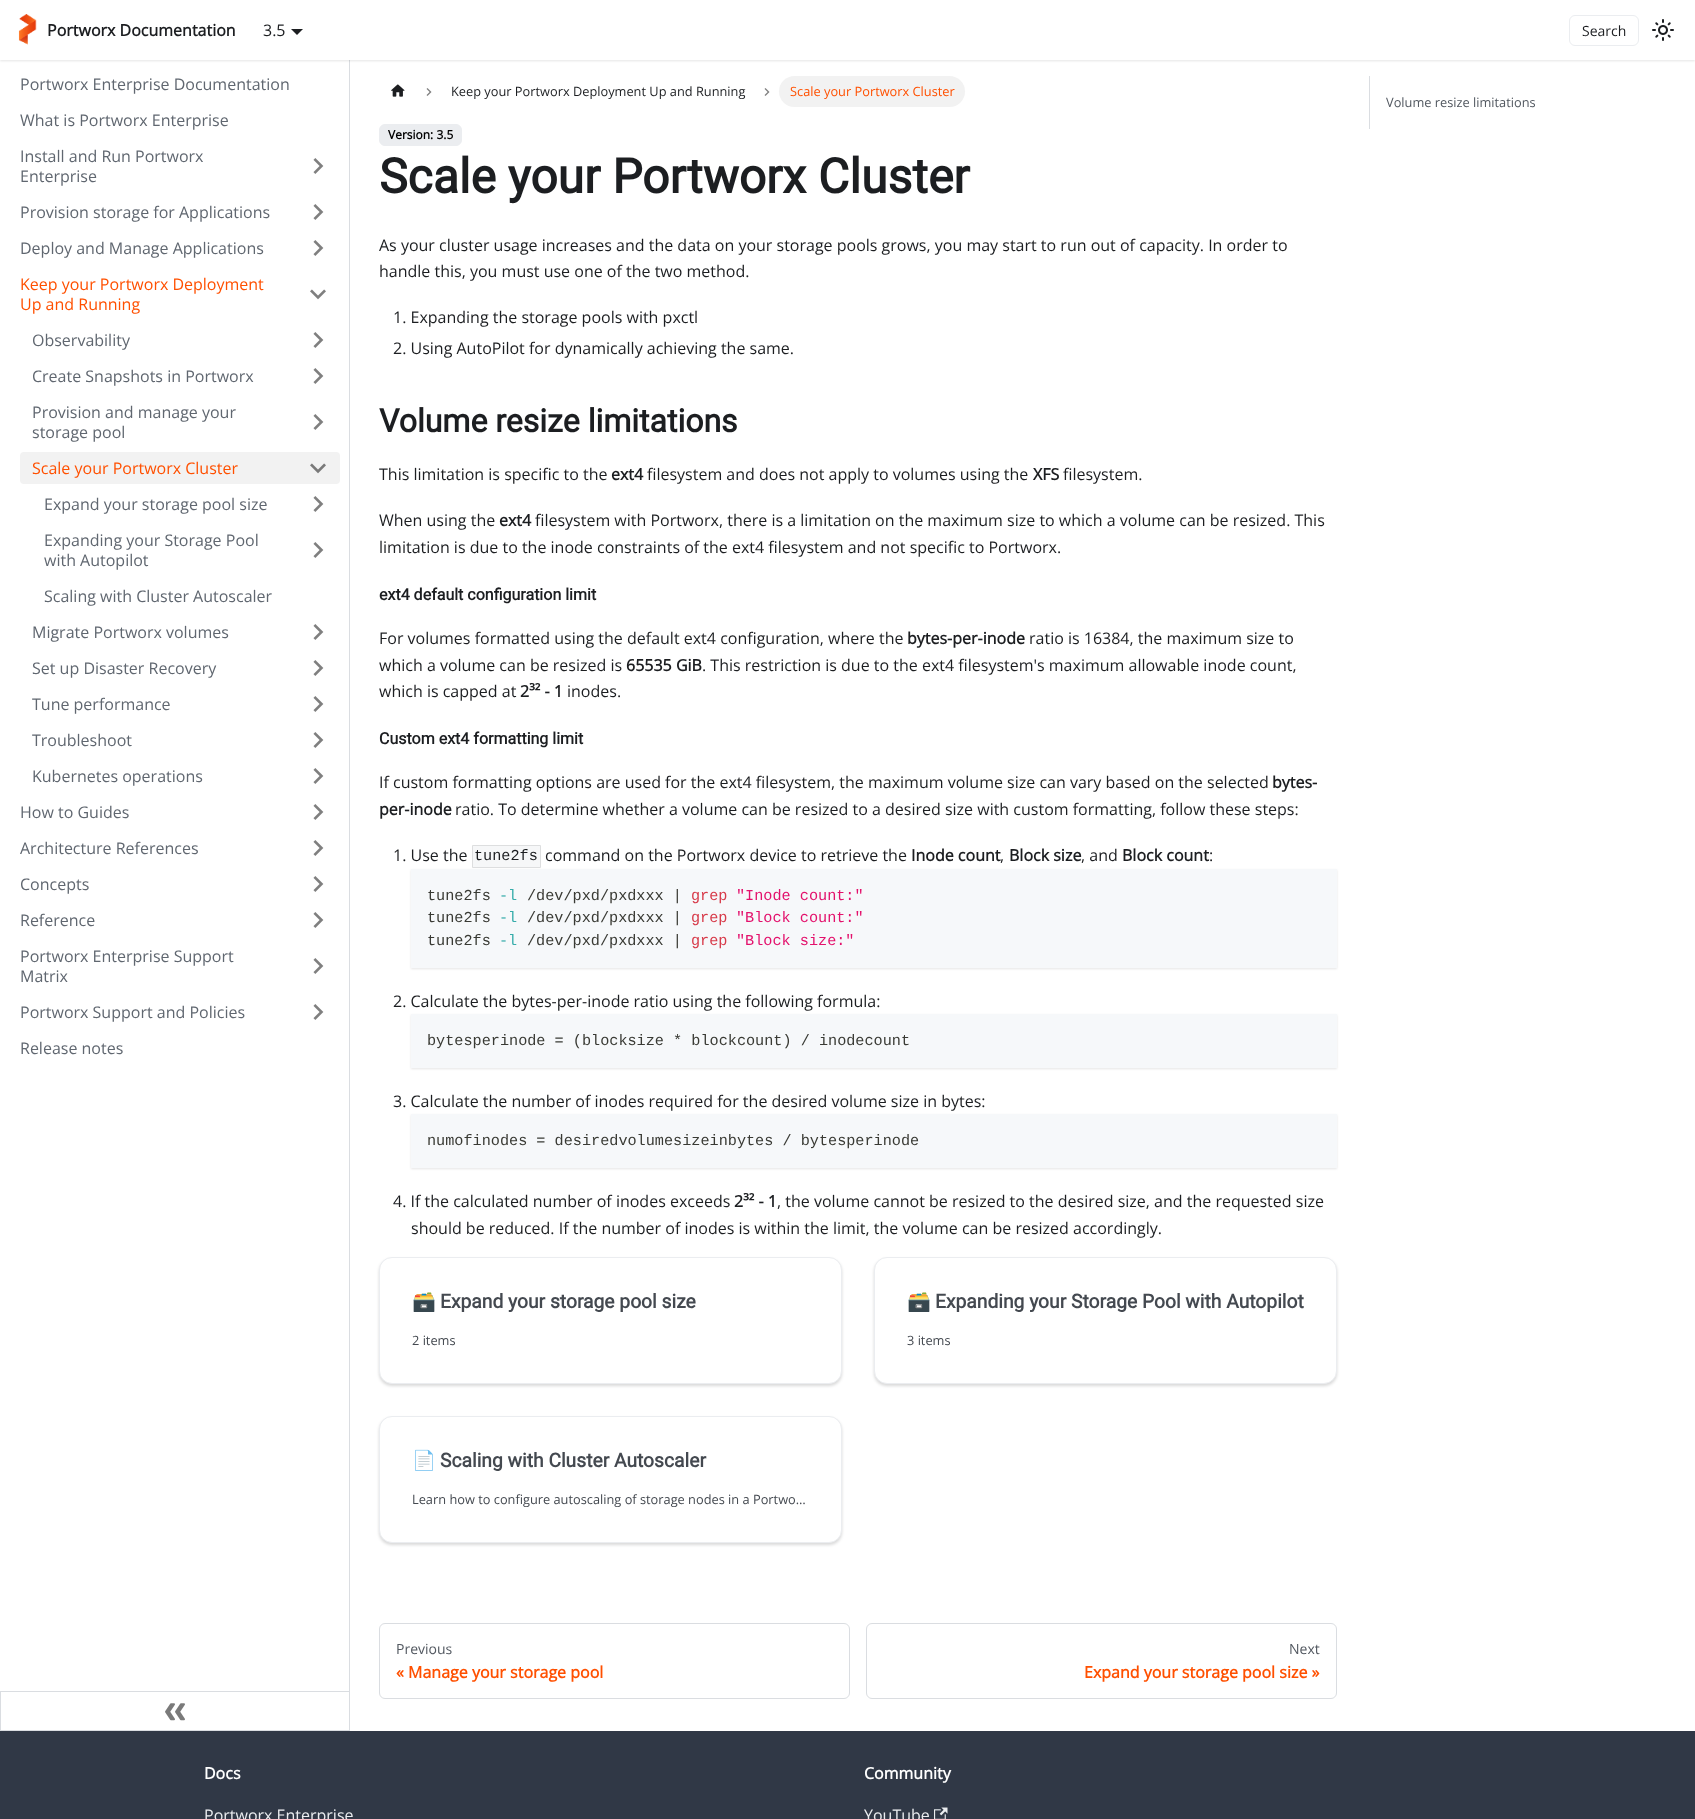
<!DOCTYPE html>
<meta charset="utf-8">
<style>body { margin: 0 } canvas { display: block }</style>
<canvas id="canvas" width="1695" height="1819"></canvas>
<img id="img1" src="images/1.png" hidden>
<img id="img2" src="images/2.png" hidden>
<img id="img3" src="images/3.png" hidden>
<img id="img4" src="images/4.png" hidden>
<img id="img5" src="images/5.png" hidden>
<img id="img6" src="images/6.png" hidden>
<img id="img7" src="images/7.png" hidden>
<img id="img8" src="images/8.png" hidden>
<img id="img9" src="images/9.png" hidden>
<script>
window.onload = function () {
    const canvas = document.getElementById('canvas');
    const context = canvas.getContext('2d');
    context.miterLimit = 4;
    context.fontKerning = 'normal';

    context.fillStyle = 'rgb(255, 255, 255)';
    context.fillRect(0, 0, 1695, 1819);
    context.fillStyle = 'rgb(218, 221, 225)';
    context.fillRect(349, 60, 1, 1631);
    context.fillStyle = 'rgba(0, 0, 0, 0.1)';
    context.filter = 'blur(1px)';
    context.beginPath();
    context.rect(0, 1, 1695, 60);
    context.fill();
    context.filter = 'none';
    context.fillStyle = 'rgb(255, 255, 255)';
    context.fillRect(0, 0, 1695, 60);
    context.drawImage(document.getElementById('img1'), 18, 14, 19, 31);
    context.fillStyle = 'rgb(28, 30, 33)';
    context.beginPath();
    context.moveTo(291, 29);
    context.lineTo(303, 29);
    context.lineTo(297, 35);
    context.closePath();
    context.fill();
    context.beginPath();
    context.roundRect(1569.5, 15.5, 69, 30, 5.5);
    context.strokeStyle = 'rgb(235, 237, 240)';
    context.stroke();
    context.drawImage(document.getElementById('img2'), 1652, 19, 22, 22);
    context.drawImage(document.getElementById('img3'), 313, 158, 11, 16);
    context.drawImage(document.getElementById('img3'), 313, 204, 11, 16);
    context.drawImage(document.getElementById('img3'), 313, 240, 11, 16);
    context.drawImage(document.getElementById('img4'), 310, 289, 16, 11);
    context.drawImage(document.getElementById('img3'), 313, 332, 11, 16);
    context.drawImage(document.getElementById('img3'), 313, 368, 11, 16);
    context.drawImage(document.getElementById('img3'), 313, 414, 11, 16);
    context.fillStyle = 'rgb(242, 242, 242)';
    context.beginPath();
    context.roundRect(20, 452, 320, 32, 4);
    context.fill();
    context.drawImage(document.getElementById('img5'), 310, 463, 16, 11);
    context.drawImage(document.getElementById('img3'), 313, 496, 11, 16);
    context.drawImage(document.getElementById('img3'), 313, 542, 11, 16);
    context.drawImage(document.getElementById('img3'), 313, 624, 11, 16);
    context.drawImage(document.getElementById('img3'), 313, 660, 11, 16);
    context.drawImage(document.getElementById('img3'), 313, 696, 11, 16);
    context.drawImage(document.getElementById('img3'), 313, 732, 11, 16);
    context.drawImage(document.getElementById('img3'), 313, 768, 11, 16);
    context.drawImage(document.getElementById('img3'), 313, 804, 11, 16);
    context.drawImage(document.getElementById('img3'), 313, 840, 11, 16);
    context.drawImage(document.getElementById('img3'), 313, 876, 11, 16);
    context.drawImage(document.getElementById('img3'), 313, 912, 11, 16);
    context.drawImage(document.getElementById('img3'), 313, 958, 11, 16);
    context.drawImage(document.getElementById('img3'), 313, 1004, 11, 16);
    context.strokeStyle = 'rgb(218, 221, 225)';
    context.strokeRect(0.5, 1691.5, 349, 39);
    context.drawImage(document.getElementById('img6'), 165, 1703, 20, 18);
    context.drawImage(document.getElementById('img7'), 391, 84, 14, 13);
    context.drawImage(document.getElementById('img8'), 426, 88, 6, 8);
    context.drawImage(document.getElementById('img8'), 764, 88, 6, 8);
    context.beginPath();
    context.roundRect(779, 76, 186, 31, 15.5);
    context.fill();
    context.fillStyle = 'rgb(235, 237, 240)';
    context.beginPath();
    context.roundRect(379.5, 124.5, 82, 21, 5.5);
    context.fill();
    context.strokeStyle = 'rgb(235, 237, 240)';
    context.stroke();
    context.fillStyle = 'rgba(0, 0, 0, 0.1)';
    context.filter = 'blur(1px)';
    context.beginPath();
    context.rect(411, 870, 926, 99);
    context.fill();
    context.filter = 'none';
    context.fillStyle = 'rgb(246, 247, 248)';
    context.beginPath();
    context.rect(472.5, 845.5, 68, 22);
    context.fill();
    context.strokeStyle = 'rgb(221, 222, 223)';
    context.stroke();
    context.fillStyle = 'rgb(246, 248, 250)';
    context.fillRect(411, 869, 926, 99);
    context.fillStyle = 'rgba(0, 0, 0, 0.1)';
    context.filter = 'blur(1px)';
    context.beginPath();
    context.rect(411, 1015, 926, 54);
    context.fill();
    context.filter = 'none';
    context.fillStyle = 'rgb(246, 248, 250)';
    context.fillRect(411, 1014, 926, 54);
    context.fillStyle = 'rgba(0, 0, 0, 0.1)';
    context.filter = 'blur(1px)';
    context.beginPath();
    context.rect(411, 1115, 926, 54);
    context.fill();
    context.filter = 'none';
    context.fillStyle = 'rgb(246, 248, 250)';
    context.fillRect(411, 1114, 926, 54);
    context.fillStyle = 'rgba(0, 0, 0, 0.15)';
    context.filter = 'blur(1.5px)';
    context.beginPath();
    context.roundRect(379, 1259, 463, 127, 13);
    context.fill();
    context.filter = 'none';
    context.fillStyle = 'rgb(255, 255, 255)';
    context.beginPath();
    context.roundRect(379.5, 1257.5, 462, 126, 12.5);
    context.fill();
    context.strokeStyle = 'rgb(235, 237, 240)';
    context.stroke();
    context.fillStyle = 'rgba(0, 0, 0, 0.15)';
    context.filter = 'blur(1.5px)';
    context.beginPath();
    context.roundRect(874, 1259, 463, 127, 13);
    context.fill();
    context.filter = 'none';
    context.fillStyle = 'rgb(255, 255, 255)';
    context.beginPath();
    context.roundRect(874.5, 1257.5, 462, 126, 12.5);
    context.fill();
    context.stroke();
    context.fillStyle = 'rgba(0, 0, 0, 0.15)';
    context.filter = 'blur(1.5px)';
    context.beginPath();
    context.roundRect(379, 1418, 463, 127, 13);
    context.fill();
    context.filter = 'none';
    context.fillStyle = 'rgb(255, 255, 255)';
    context.beginPath();
    context.roundRect(379.5, 1416.5, 462, 126, 12.5);
    context.fill();
    context.stroke();
    context.beginPath();
    context.roundRect(379.5, 1623.5, 470, 75, 5.5);
    context.strokeStyle = 'rgb(218, 221, 225)';
    context.stroke();
    context.beginPath();
    context.roundRect(866.5, 1623.5, 470, 75, 5.5);
    context.stroke();
    context.fillStyle = 'rgb(218, 221, 225)';
    context.fillRect(1369, 76, 1, 53);
    context.fillStyle = 'rgb(48, 56, 70)';
    context.fillRect(0, 1731, 1695, 88);
    context.drawImage(document.getElementById('img9'), 934, 1807, 14, 12);
    context.font = 'bold 16px Open Sans';
    context.fillStyle = 'rgb(28, 30, 33)';
    context.fillText('Portworx Documentation', 47, 36);
    context.font = '16px Open Sans';
    context.fillText('3.5', 263, 36);
    context.font = '14px Open Sans';
    context.fillText('Search', 1582, 36);
    context.font = '16px Open Sans';
    context.fillStyle = 'rgb(96, 103, 112)';
    context.fillText('Portworx Enterprise Documentation', 20, 90);
    context.fillText('What is Portworx Enterprise', 20, 126);
    context.fillText('Install and Run Portworx', 20, 162);
    context.fillText('Enterprise', 20, 182);
    context.fillText('Provision storage for Applications', 20, 218);
    context.fillText('Deploy and Manage Applications', 20, 254);
    context.fillStyle = 'rgb(255, 80, 0)';
    context.fillText('Keep your Portworx Deployment', 20, 290);
    context.fillText('Up and Running', 20, 310);
    context.fillStyle = 'rgb(96, 103, 112)';
    context.fillText('Observability', 32, 346);
    context.fillText('Create Snapshots in Portworx', 32, 382);
    context.fillText('Provision and manage your', 32, 418);
    context.fillText('storage pool', 32, 438);
    context.fillStyle = 'rgb(255, 80, 0)';
    context.fillText('Scale your Portworx Cluster', 32, 474);
    context.fillStyle = 'rgb(96, 103, 112)';
    context.fillText('Expand your storage pool size', 44, 510);
    context.fillText('Expanding your Storage Pool', 44, 546);
    context.fillText('with Autopilot', 44, 566);
    context.fillText('Scaling with Cluster Autoscaler', 44, 602);
    context.fillText('Migrate Portworx volumes', 32, 638);
    context.fillText('Set up Disaster Recovery', 32, 674);
    context.fillText('Tune performance', 32, 710);
    context.fillText('Troubleshoot', 32, 746);
    context.fillText('Kubernetes operations', 32, 782);
    context.fillText('How to Guides', 20, 818);
    context.fillText('Architecture References', 20, 854);
    context.fillText('Concepts', 20, 890);
    context.fillText('Reference', 20, 926);
    context.fillText('Portworx Enterprise Support', 20, 962);
    context.fillText('Matrix', 20, 982);
    context.fillText('Portworx Support and Policies', 20, 1018);
    context.fillText('Release notes', 20, 1054);
    context.font = '12.8px Open Sans';
    context.fillStyle = 'rgb(28, 30, 33)';
    context.fillText('Keep your Portworx Deployment Up and Running', 451, 96);
    context.fillStyle = 'rgb(255, 80, 0)';
    context.fillText('Scale your Portworx Cluster', 790, 96);
    context.font = 'bold 12px Open Sans';
    context.fillStyle = 'rgb(0, 0, 0)';
    context.fillText('Version: 3.5', 388, 139);
    context.font = 'bold 48px Roboto';
    context.fillStyle = 'rgb(28, 30, 33)';
    context.fillText('Scale your Portworx Cluster', 379, 193);
    context.font = '16px Open Sans';
    context.fillText('As your cluster usage increases and the data on your storage pools grows, you may start to run out of capacity. In order to', 379, 251);
    context.fillText('handle this, you must use one of the two method.', 379, 277);
    context.fillText('1. Expanding the storage pools with pxctl', 393, 323);
    context.fillText('2. Using AutoPilot for dynamically achieving the same.', 393, 354);
    context.font = 'bold 32px Roboto';
    context.fillText('Volume resize limitations', 379, 432);
    context.font = '16px Open Sans';
    context.fillText('This limitation is specific to the', 379, 480);
    context.font = 'bold 16px Open Sans';
    context.fillText('ext4', 611, 480);
    context.font = '16px Open Sans';
    context.fillText('filesystem and does not apply to volumes using the', 647, 480);
    context.font = 'bold 16px Open Sans';
    context.fillText('XFS', 1033, 480);
    context.font = '16px Open Sans';
    context.fillText('filesystem.', 1063, 480);
    context.fillText('When using the', 379, 526);
    context.font = 'bold 16px Open Sans';
    context.fillText('ext4', 499, 526);
    context.font = '16px Open Sans';
    context.fillText('filesystem with Portworx, there is a limitation on the maximum size to which a volume can be resized. This', 535, 526);
    context.fillText('limitation is due to the inode constraints of the ext4 filesystem and not specific to Portworx.', 379, 553);
    context.font = 'bold 16px Roboto';
    context.fillText('ext4 default configuration limit', 379, 600);
    context.font = '16px Open Sans';
    context.fillText('For volumes formatted using the default ext4 configuration, where the', 379, 644);
    context.font = 'bold 16px Open Sans';
    context.fillText('bytes-per-inode', 907, 644);
    context.font = '16px Open Sans';
    context.fillText('ratio is 16384, the maximum size to', 1029, 644);
    context.fillText('which a volume can be resized is', 379, 671);
    context.font = 'bold 16px Open Sans';
    context.fillText('65535 GiB', 626, 671);
    context.font = '16px Open Sans';
    context.fillText('. This restriction is due to the ext4 filesystem\'s maximum allowable inode count,', 702, 671);
    context.fillText('which is capped at', 379, 697);
    context.font = 'bold 16px Open Sans';
    context.fillText('2³² - 1', 520, 697);
    context.font = '16px Open Sans';
    context.fillText('inodes.', 567, 697);
    context.font = 'bold 16px Roboto';
    context.fillText('Custom ext4 formatting limit', 379, 744);
    context.font = '16px Open Sans';
    context.fillText('If custom formatting options are used for the ext4 filesystem, the maximum volume size can vary based on the selected', 379, 788);
    context.font = 'bold 16px Open Sans';
    context.fillText('bytes-', 1272, 788);
    context.fillText('per-inode', 379, 815);
    context.font = '16px Open Sans';
    context.fillText('ratio. To determine whether a volume can be resized to a desired size with custom formatting, follow these steps:', 455, 815);
    context.fillText('1. Use the', 393, 861);
    context.font = '15.2px Liberation Mono';
    context.fillText('tune2fs', 474, 860);
    context.font = '16px Open Sans';
    context.fillText('command on the Portworx device to retrieve the', 545, 861);
    context.font = 'bold 16px Open Sans';
    context.fillText('Inode count', 911, 861);
    context.font = '16px Open Sans';
    context.fillText(',', 1000, 861);
    context.font = 'bold 16px Open Sans';
    context.fillText('Block size', 1009, 861);
    context.font = '16px Open Sans';
    context.fillText(', and', 1081, 861);
    context.font = 'bold 16px Open Sans';
    context.fillText('Block count', 1122, 861);
    context.font = '16px Open Sans';
    context.fillText(':', 1209, 861);
    context.font = '15.2px Liberation Mono';
    context.fillStyle = 'rgb(57, 58, 52)';
    context.fillText('tune2fs', 427, 900);
    context.fillStyle = 'rgb(54, 172, 170)';
    context.fillText('-l', 499, 900);
    context.fillStyle = 'rgb(57, 58, 52)';
    context.fillText('/dev/pxd/pxdxxx |', 527, 900);
    context.fillStyle = 'rgb(215, 58, 73)';
    context.fillText('grep', 691, 900);
    context.fillStyle = 'rgb(227, 17, 108)';
    context.fillText('"Inode count:"', 736, 900);
    context.fillStyle = 'rgb(57, 58, 52)';
    context.fillText('tune2fs', 427, 922);
    context.fillStyle = 'rgb(54, 172, 170)';
    context.fillText('-l', 499, 922);
    context.fillStyle = 'rgb(57, 58, 52)';
    context.fillText('/dev/pxd/pxdxxx |', 527, 922);
    context.fillStyle = 'rgb(215, 58, 73)';
    context.fillText('grep', 691, 922);
    context.fillStyle = 'rgb(227, 17, 108)';
    context.fillText('"Block count:"', 736, 922);
    context.fillStyle = 'rgb(57, 58, 52)';
    context.fillText('tune2fs', 427, 945);
    context.fillStyle = 'rgb(54, 172, 170)';
    context.fillText('-l', 499, 945);
    context.fillStyle = 'rgb(57, 58, 52)';
    context.fillText('/dev/pxd/pxdxxx |', 527, 945);
    context.fillStyle = 'rgb(215, 58, 73)';
    context.fillText('grep', 691, 945);
    context.fillStyle = 'rgb(227, 17, 108)';
    context.fillText('"Block size:"', 736, 945);
    context.font = '16px Open Sans';
    context.fillStyle = 'rgb(28, 30, 33)';
    context.fillText('2. Calculate the bytes-per-inode ratio using the following formula:', 393, 1007);
    context.font = '15.2px Liberation Mono';
    context.fillStyle = 'rgb(57, 58, 52)';
    context.fillText('bytesperinode = (blocksize * blockcount) / inodecount', 427, 1045);
    context.font = '16px Open Sans';
    context.fillStyle = 'rgb(28, 30, 33)';
    context.fillText('3. Calculate the number of inodes required for the desired volume size in bytes:', 393, 1107);
    context.font = '15.2px Liberation Mono';
    context.fillStyle = 'rgb(57, 58, 52)';
    context.fillText('numofinodes = desiredvolumesizeinbytes / bytesperinode', 427, 1145);
    context.font = '16px Open Sans';
    context.fillStyle = 'rgb(28, 30, 33)';
    context.fillText('4. If the calculated number of inodes exceeds', 393, 1207);
    context.font = 'bold 16px Open Sans';
    context.fillText('2³² - 1', 734, 1207);
    context.font = '16px Open Sans';
    context.fillText(', the volume cannot be resized to the desired size, and the requested size', 777, 1207);
    context.fillText('should be reduced. If the number of inodes is within the limit, the volume can be resized accordingly.', 411, 1234);
    context.save();
    context.beginPath();
    context.rect(412, 1290, 397, 24);
    context.clip();
    context.font = 'bold 19.25px Noto Color Emoji';
    context.fillStyle = 'rgb(68, 73, 80)';
    context.fillText('🗃️', 412, 1308);
    context.restore();
    context.font = 'bold 19.25px Roboto';
    context.fillStyle = 'rgb(68, 73, 80)';
    context.fillText('Expand your storage pool size', 440, 1308);
    context.font = '12.8px Open Sans';
    context.fillText('2 items', 412, 1345);
    context.save();
    context.beginPath();
    context.rect(907, 1290, 397, 24);
    context.clip();
    context.font = 'bold 19.25px Noto Color Emoji';
    context.fillText('🗃️', 907, 1308);
    context.restore();
    context.font = 'bold 19.25px Roboto';
    context.fillText('Expanding your Storage Pool with Autopilot', 935, 1308);
    context.font = '12.8px Open Sans';
    context.fillText('3 items', 907, 1345);
    context.save();
    context.beginPath();
    context.rect(412, 1449, 397, 24);
    context.clip();
    context.font = 'bold 19.25px Noto Color Emoji';
    context.fillText('📄️', 412, 1467);
    context.restore();
    context.font = 'bold 19.25px Roboto';
    context.fillText('Scaling with Cluster Autoscaler', 440, 1467);
    context.font = '12.8px Open Sans';
    context.fillText('Learn how to configure autoscaling of storage nodes in a Portwo…', 412, 1504);
    context.font = '14px Open Sans';
    context.fillStyle = 'rgb(82, 88, 96)';
    context.fillText('Previous', 396, 1654);
    context.font = 'bold 16px Open Sans';
    context.fillStyle = 'rgb(255, 80, 0)';
    context.fillText('« Manage your storage pool', 396, 1678);
    context.font = '14px Open Sans';
    context.fillStyle = 'rgb(82, 88, 96)';
    context.fillText('Next', 1289, 1654);
    context.font = 'bold 16px Open Sans';
    context.fillStyle = 'rgb(255, 80, 0)';
    context.fillText('Expand your storage pool size »', 1084, 1678);
    context.font = '12.8px Open Sans';
    context.fillStyle = 'rgb(82, 88, 96)';
    context.fillText('Volume resize limitations', 1386, 107);
    context.font = 'bold 16px Open Sans';
    context.fillStyle = 'rgb(255, 255, 255)';
    context.fillText('Docs', 204, 1779);
    context.font = '16px Open Sans';
    context.fillStyle = 'rgb(235, 237, 240)';
    context.fillText('Portworx Enterprise', 204, 1821);
    context.font = 'bold 16px Open Sans';
    context.fillStyle = 'rgb(255, 255, 255)';
    context.fillText('Community', 864, 1779);
    context.font = '16px Open Sans';
    context.fillStyle = 'rgb(235, 237, 240)';
    context.fillText('YouTube', 864, 1821);
};
</script>
